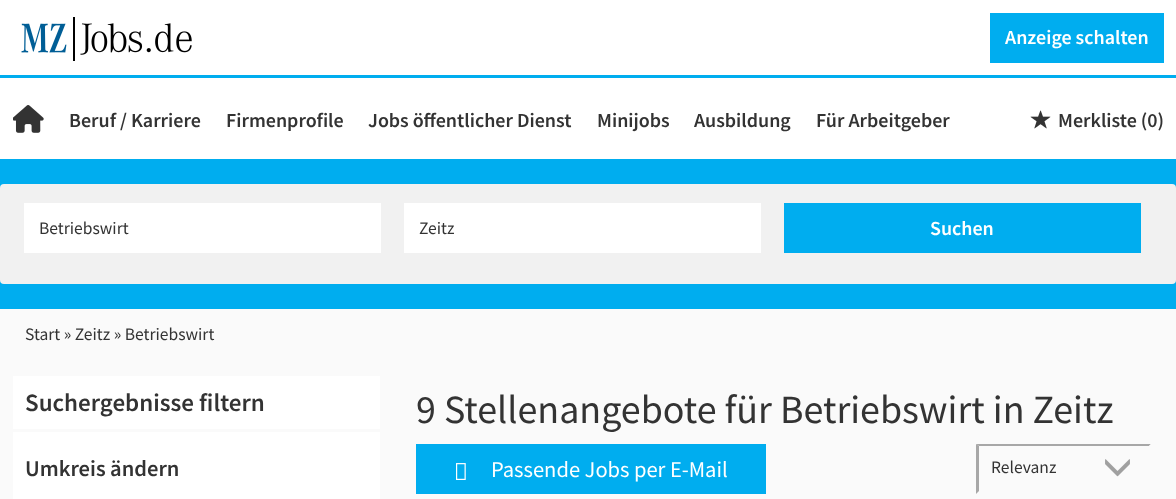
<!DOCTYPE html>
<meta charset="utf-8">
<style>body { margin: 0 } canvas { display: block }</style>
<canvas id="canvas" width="1176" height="499"></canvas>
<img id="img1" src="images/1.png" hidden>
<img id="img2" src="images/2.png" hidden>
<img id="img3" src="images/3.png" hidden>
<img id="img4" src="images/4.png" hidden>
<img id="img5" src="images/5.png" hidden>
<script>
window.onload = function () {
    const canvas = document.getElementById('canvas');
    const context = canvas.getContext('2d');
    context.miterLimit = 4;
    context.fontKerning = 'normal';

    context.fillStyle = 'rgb(255, 255, 255)';
    context.fillRect(0, 0, 1176, 499);
    context.drawImage(document.getElementById('img1'), 21, 17, 171, 44);
    context.fillStyle = 'rgb(0, 173, 239)';
    context.fillRect(990, 13, 174, 50);
    context.fillRect(0, 75, 1176, 3);
    context.drawImage(document.getElementById('img2'), 13, 105, 31, 28);
    context.drawImage(document.getElementById('img3'), 1030, 110, 21, 19);
    context.fillRect(0, 159, 1176, 150);
    context.fillStyle = 'rgb(241, 241, 241)';
    context.beginPath();
    context.roundRect(0, 184, 1176, 100, 4);
    context.fill();
    context.fillStyle = 'rgb(255, 255, 255)';
    context.fillRect(24, 203, 357, 50);
    context.fillRect(404, 203, 357, 50);
    context.fillStyle = 'rgb(0, 173, 239)';
    context.fillRect(784, 203, 357, 50);
    context.fillStyle = 'rgb(250, 250, 250)';
    context.fillRect(0, 309, 1176, 190);
    context.fillStyle = 'rgb(255, 255, 255)';
    context.fillRect(13, 376, 367, 123);
    context.fillStyle = 'rgb(250, 250, 250)';
    context.fillRect(13, 429, 367, 3);
    context.fillStyle = 'rgb(0, 173, 239)';
    context.fillRect(416, 444, 350, 50);
    context.drawImage(document.getElementById('img4'), 456, 463, 10, 17);
    context.fillStyle = 'rgb(167, 167, 167)';
    context.beginPath();
    context.moveTo(976, 444);
    context.lineTo(1151, 444);
    context.lineTo(1149, 446);
    context.lineTo(979, 446);
    context.closePath();
    context.fill();
    context.fillStyle = 'rgb(250, 250, 250)';
    context.beginPath();
    context.moveTo(1151, 444);
    context.lineTo(1151, 494);
    context.lineTo(1149, 491);
    context.lineTo(1149, 446);
    context.closePath();
    context.fill();
    context.fillStyle = 'rgb(167, 167, 167)';
    context.beginPath();
    context.moveTo(976, 494);
    context.lineTo(976, 444);
    context.lineTo(979, 446);
    context.lineTo(979, 491);
    context.closePath();
    context.fill();
    context.drawImage(document.getElementById('img5'), 1105, 459, 25, 18);
    context.font = '600 20px Source Sans Pro';
    context.fillStyle = 'rgb(255, 255, 255)';
    context.fillText('Anzeige schalten', 1005, 44);
    context.fillStyle = 'rgb(51, 51, 51)';
    context.fillText('Beruf / Karriere', 69, 127);
    context.fillText('Firmenprofile', 226, 127);
    context.fillText('Jobs öffentlicher Dienst', 368, 127);
    context.fillText('Minijobs', 597, 127);
    context.fillText('Ausbildung', 694, 127);
    context.fillText('Für Arbeitgeber', 816, 127);
    context.fillText('Merkliste (0)', 1058, 127);
    context.font = '17.5px Source Sans Pro';
    context.fillText('Betriebswirt', 39, 234);
    context.fillText('Zeitz', 419, 234);
    context.font = '600 20px Source Sans Pro';
    context.fillStyle = 'rgb(255, 255, 255)';
    context.fillText('Suchen', 930, 235);
    context.font = '17.5px Source Sans Pro';
    context.fillStyle = 'rgb(51, 51, 51)';
    context.fillText('Start » Zeitz » Betriebswirt', 25, 340);
    context.font = '600 25px Source Sans Pro';
    context.fillText('Suchergebnisse filtern', 25, 411);
    context.font = '600 22.5px Source Sans Pro';
    context.fillText('Umkreis ändern', 25, 476);
    context.font = '40px Source Sans Pro';
    context.fillText('9 Stellenangebote für Betriebswirt in Zeitz', 416, 423);
    context.font = '22.5px Source Sans Pro';
    context.fillStyle = 'rgb(255, 255, 255)';
    context.fillText('Passende Jobs per E-Mail', 491, 477);
    context.font = '17.5px Source Sans Pro';
    context.fillStyle = 'rgb(51, 51, 51)';
    context.fillText('Relevanz', 991, 473);
};
</script>
